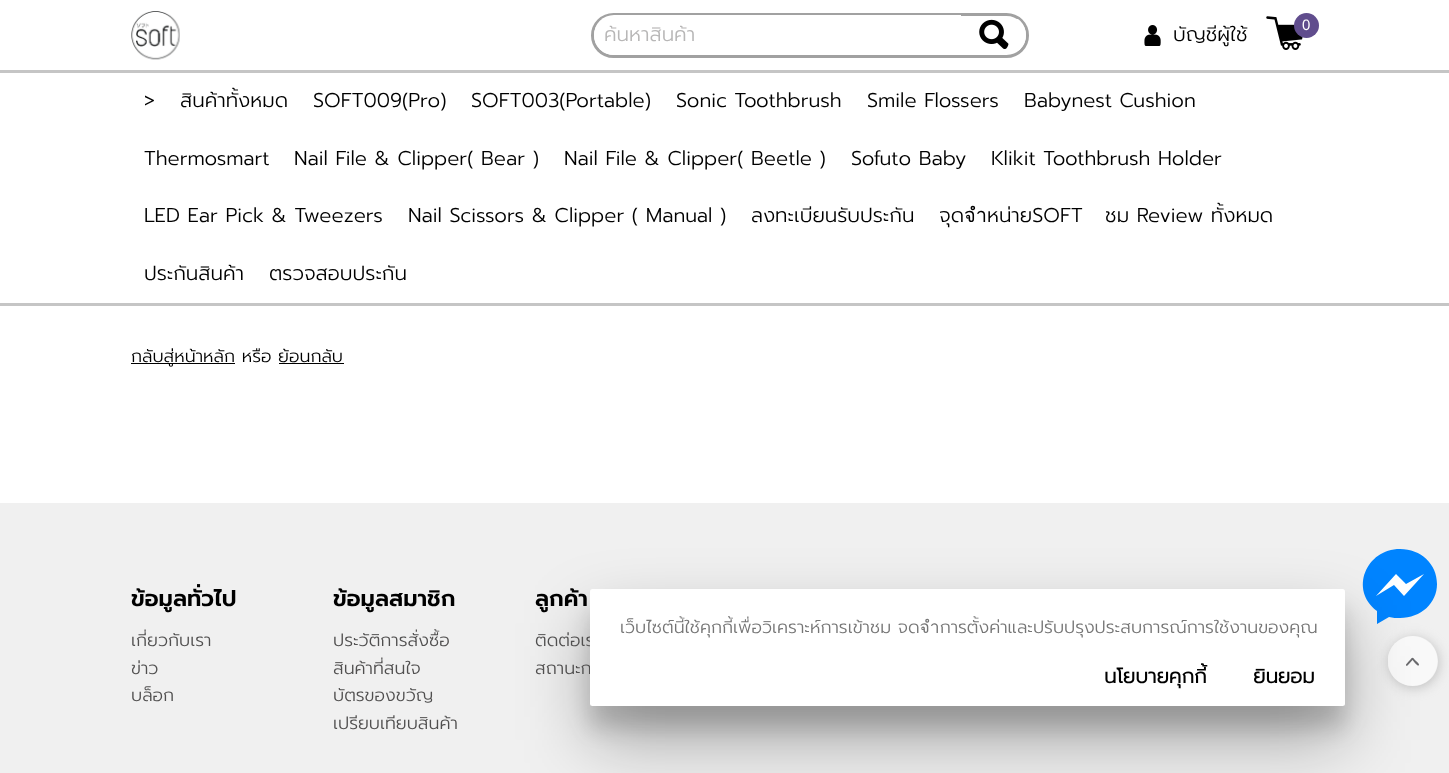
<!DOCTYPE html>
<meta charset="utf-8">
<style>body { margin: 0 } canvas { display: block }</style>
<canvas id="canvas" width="1449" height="773"></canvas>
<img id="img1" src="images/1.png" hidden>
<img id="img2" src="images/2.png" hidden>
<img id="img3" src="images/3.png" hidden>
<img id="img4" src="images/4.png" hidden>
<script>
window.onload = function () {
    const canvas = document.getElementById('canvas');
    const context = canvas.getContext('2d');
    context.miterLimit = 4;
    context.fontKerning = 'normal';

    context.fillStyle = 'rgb(255, 255, 255)';
    context.fillRect(0, 0, 1449, 773);
    context.fillStyle = 'rgb(197, 197, 197)';
    context.fillRect(0, 70, 1449, 3);
    context.drawImage(document.getElementById('img1'), 131, 11, 49, 49);
    context.beginPath();
    context.roundRect(592.5, 14.5, 435, 42, 21);
    context.strokeStyle = 'rgb(161, 161, 161)';
    context.lineWidth = 3;
    context.stroke();
    context.fillStyle = 'rgb(255, 255, 255)';
    context.beginPath();
    context.roundRect(594, 15, 367, 40, [20, 0, 0, 20]);
    context.fill();
    context.save();
    context.beginPath();
    context.roundRect(594, 15, 432, 40, 20);
    context.clip();
    context.fillRect(961, 19, 65, 32);
    context.restore();
    context.drawImage(document.getElementById('img2'), 979, 19, 30, 30);
    context.drawImage(document.getElementById('img3'), 1144, 25, 17, 21);
    context.drawImage(document.getElementById('img4'), 1266, 16, 37, 34);
    context.fillStyle = 'rgb(96, 77, 141)';
    context.beginPath();
    context.arc(1306.5, 25.5, 12.5, 0, 2 * Math.PI);
    context.fill();
    context.fillStyle = 'rgb(197, 197, 197)';
    context.fillRect(0, 303, 1449, 3);
    context.fillStyle = 'rgb(0, 0, 0)';
    context.fillRect(131, 363, 104, 1);
    context.fillRect(279, 363, 65, 1);
    context.fillStyle = 'rgb(240, 240, 240)';
    context.fillRect(0, 503, 1449, 270);
    context.save();
    context.beginPath();
    context.moveTo(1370, 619);
    context.lineTo(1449, 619);
    context.lineTo(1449, 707);
    context.lineTo(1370, 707);
    context.closePath();
    context.moveTo(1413, 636);
    context.bezierCurveTo(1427, 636, 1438, 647, 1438, 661);
    context.bezierCurveTo(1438, 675, 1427, 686, 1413, 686);
    context.bezierCurveTo(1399, 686, 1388, 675, 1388, 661);
    context.bezierCurveTo(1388, 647, 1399, 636, 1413, 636);
    context.closePath();
    context.clip('evenodd');
    context.fillStyle = 'rgba(180, 180, 180, 0.8)';
    context.filter = 'blur(6px)';
    context.beginPath();
    context.roundRect(1389, 638, 50, 50, 25);
    context.fill();
    context.filter = 'none';
    context.restore();
    context.save();
    context.beginPath();
    context.rect(1388, 636, 50, 50);
    context.clip();
    context.fillStyle = 'rgba(255, 255, 255, 0.6)';
    context.beginPath();
    context.arc(1412.5, 661, 25, 0, 2 * Math.PI);
    context.fill();
    context.restore();
    context.fillStyle = 'rgb(107, 107, 110)';
    context.beginPath();
    context.moveTo(1419, 664.5);
    context.bezierCurveTo(1419, 668.5, 1413, 660.5, 1412.5, 660);
    context.lineTo(1408.5, 664.5);
    context.bezierCurveTo(1408, 665, 1407, 666.5, 1406, 665.5);
    context.lineTo(1406, 664.5);
    context.lineTo(1409, 661);
    context.bezierCurveTo(1413, 656.5, 1412, 656.5, 1416, 661);
    context.bezierCurveTo(1417, 662, 1419, 663.5, 1419, 664.5);
    context.closePath();
    context.fill();
    context.fillStyle = 'rgb(255, 255, 255)';
    context.beginPath();
    context.ellipse(1400, 584, 31.5, 21, 0, 0, 2 * Math.PI);
    context.fill();
    context.fillStyle = 'rgb(0, 132, 255)';
    context.beginPath();
    context.moveTo(1400, 549);
    context.bezierCurveTo(1366, 549, 1349, 590, 1377, 611);
    context.lineTo(1377, 624);
    context.lineTo(1389, 617);
    context.bezierCurveTo(1393, 618, 1396, 618, 1400, 618);
    context.bezierCurveTo(1421, 618, 1437, 603, 1437, 584);
    context.bezierCurveTo(1437, 564, 1421, 549, 1400, 549);
    context.closePath();
    context.moveTo(1404, 596);
    context.lineTo(1394, 585);
    context.lineTo(1376, 596);
    context.lineTo(1396, 574);
    context.lineTo(1406, 584);
    context.lineTo(1424, 574);
    context.closePath();
    context.fill();
    context.fillStyle = 'rgba(0, 0, 0, 0.3)';
    context.filter = 'blur(34.5px)';
    context.beginPath();
    context.roundRect(590, 623, 755, 117, 2.5);
    context.fill();
    context.filter = 'none';
    context.fillStyle = 'rgba(0, 0, 0, 0.15)';
    context.filter = 'blur(10.5px)';
    context.beginPath();
    context.roundRect(590, 610, 755, 118, 2.5);
    context.fill();
    context.filter = 'none';
    context.save();
    context.beginPath();
    context.rect(604, 20, 351, 30);
    context.clip();
    context.font = '300 20px Prompt';
    context.fillStyle = 'rgb(184, 183, 183)';
    context.fillText('ค้นหาสินค้า', 604, 41);
    context.restore();
    context.font = '300 20px Prompt';
    context.fillStyle = 'rgb(0, 0, 0)';
    context.fillText('บัญชีผู้ใช้', 1173, 41);
    context.font = '15px Liberation Sans';
    context.fillStyle = 'rgb(255, 255, 255)';
    context.fillText('0', 1302, 30);
    context.font = '300 20px Prompt';
    context.fillStyle = 'rgb(0, 0, 0)';
    context.fillText('>', 144, 107);
    context.fillText('สินค้าทั้งหมด', 180, 107);
    context.fillText('SOFT009(Pro)', 313, 107);
    context.fillText('SOFT003(Portable)', 471, 107);
    context.fillText('Sonic Toothbrush', 676, 107);
    context.fillText('Smile Flossers', 867, 107);
    context.fillText('Babynest Cushion', 1024, 107);
    context.fillText('Thermosmart', 144, 165);
    context.fillText('Nail File & Clipper( Bear )', 294, 165);
    context.fillText('Nail File & Clipper( Beetle )', 564, 165);
    context.fillText('Sofuto Baby', 851, 165);
    context.fillText('Klikit Toothbrush Holder', 991, 165);
    context.fillText('LED Ear Pick & Tweezers', 144, 222);
    context.fillText('Nail Scissors & Clipper ( Manual )', 408, 222);
    context.fillText('ลงทะเบียนรับประกัน', 751, 222);
    context.fillText('จุดจำหน่ายSOFT', 939, 222);
    context.fillText('ชม Review ทั้งหมด', 1105, 222);
    context.fillText('ประกันสินค้า', 144, 280);
    context.fillText('ตรวจสอบประกัน', 269, 280);
    context.font = '300 17.5px Prompt';
    context.fillText('กลับสู่หน้าหลัก หรือ ย้อนกลับ', 131, 362);
    context.font = '600 22.5px Prompt';
    context.fillText('ข้อมูลทั่วไป', 131, 606);
    context.font = '300 17.5px Prompt';
    context.fillStyle = 'rgb(80, 79, 79)';
    context.fillText('เกี่ยวกับเรา', 131, 646);
    context.fillText('ข่าว', 131, 674);
    context.fillText('บล็อก', 131, 701);
    context.font = '600 22.5px Prompt';
    context.fillStyle = 'rgb(0, 0, 0)';
    context.fillText('ข้อมูลสมาชิก', 333, 606);
    context.font = '300 17.5px Prompt';
    context.fillStyle = 'rgb(80, 79, 79)';
    context.fillText('ประวัติการสั่งซื้อ', 333, 646);
    context.fillText('สินค้าที่สนใจ', 333, 674);
    context.fillText('บัตรของขวัญ', 333, 701);
    context.fillText('เปรียบเทียบสินค้า', 333, 729);
    context.font = '600 22.5px Prompt';
    context.fillStyle = 'rgb(0, 0, 0)';
    context.fillText('ลูกค้า', 535, 606);
    context.font = '300 17.5px Prompt';
    context.fillStyle = 'rgb(80, 79, 79)';
    context.fillText('ติดต่อเร', 535, 646);
    context.fillText('สถานะก', 535, 674);
    context.fillStyle = 'rgb(255, 255, 255)';
    context.beginPath();
    context.roundRect(590, 589, 755, 117, 2.5);
    context.fill();
    context.fillStyle = 'rgb(117, 117, 117)';
    context.fillText('เว็บไซต์นี้ใช้คุกกี้เพื่อวิเคราะห์การเข้าชม จดจำการตั้งค่าและปรับปรุงประสบการณ์การใช้งานของคุณ', 620, 633);
    context.font = 'bold 20px Prompt';
    context.fillStyle = 'rgb(0, 0, 0)';
    context.fillText('นโยบายคุกกี้', 1104, 683);
    context.fillText('ยินยอม', 1253, 683);
};
</script>
